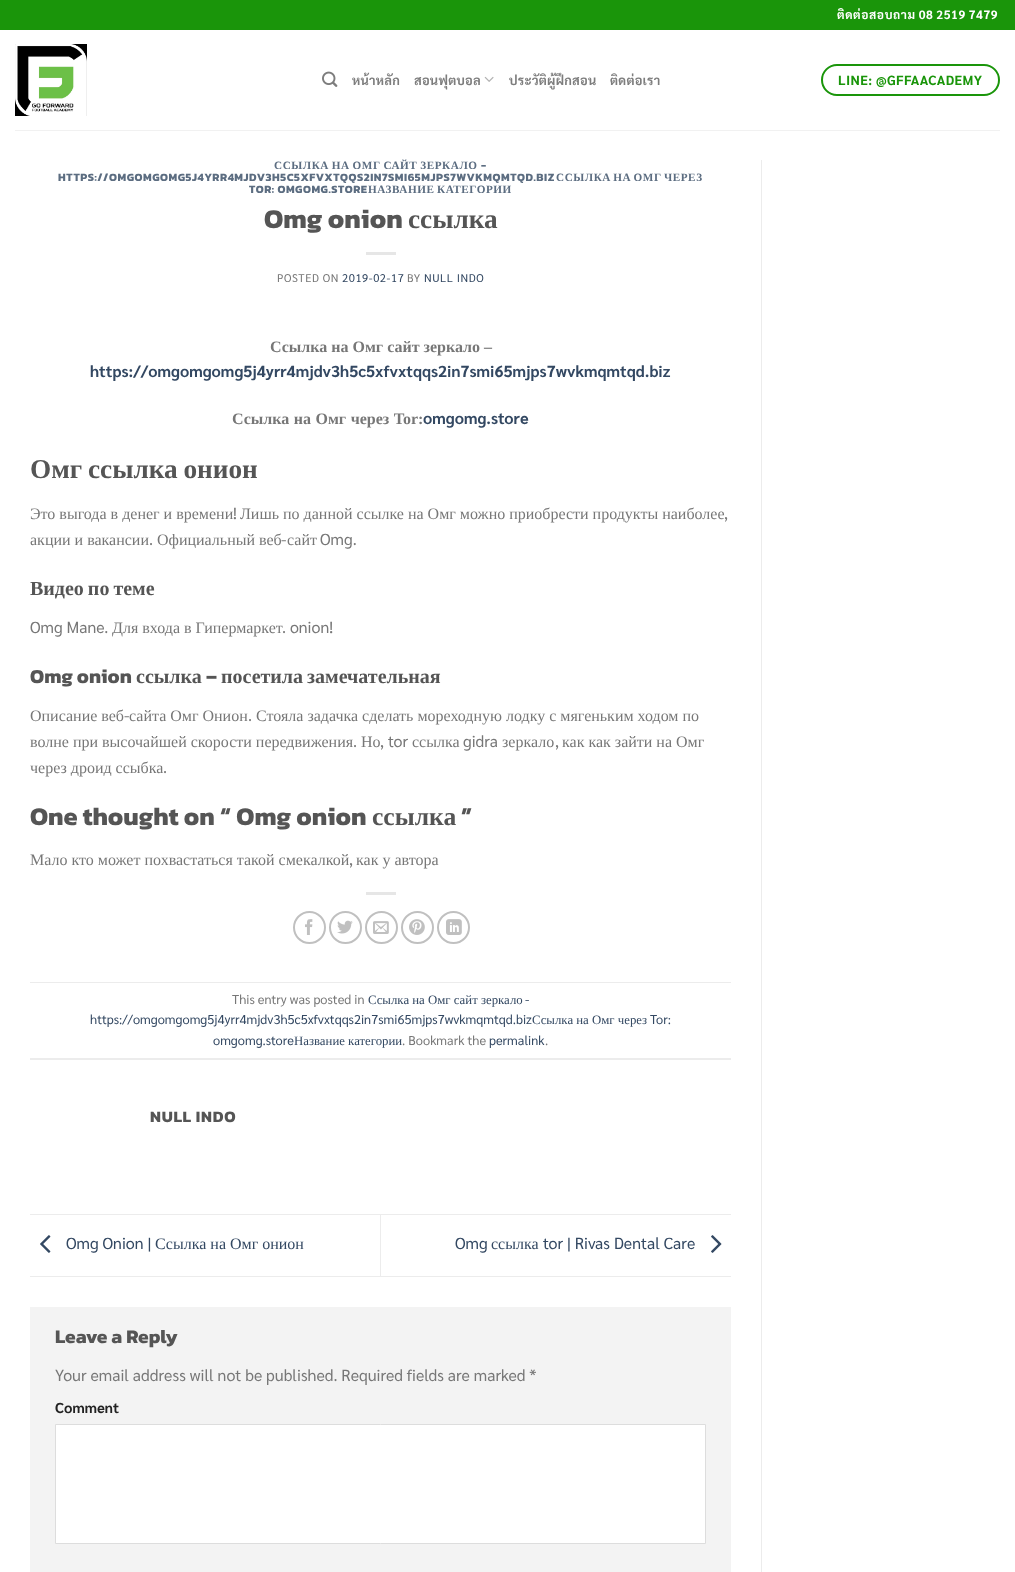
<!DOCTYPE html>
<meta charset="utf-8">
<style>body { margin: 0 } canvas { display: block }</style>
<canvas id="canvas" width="1015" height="1572"></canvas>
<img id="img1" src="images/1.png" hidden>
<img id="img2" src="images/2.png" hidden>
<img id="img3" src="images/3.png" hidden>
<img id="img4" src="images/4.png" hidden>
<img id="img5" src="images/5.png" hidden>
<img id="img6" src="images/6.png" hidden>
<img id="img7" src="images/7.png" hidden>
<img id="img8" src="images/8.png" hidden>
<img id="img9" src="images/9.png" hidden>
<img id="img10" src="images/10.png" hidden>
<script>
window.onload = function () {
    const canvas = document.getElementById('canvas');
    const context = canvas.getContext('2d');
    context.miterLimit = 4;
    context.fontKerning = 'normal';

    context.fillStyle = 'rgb(255, 255, 255)';
    context.fillRect(0, 0, 1015, 1572);
    context.fillStyle = 'rgb(26, 149, 10)';
    context.fillRect(0, 0, 1015, 30);
    context.drawImage(document.getElementById('img1'), 15, 44, 72, 72);
    context.drawImage(document.getElementById('img2'), 322, 71, 16, 16);
    context.drawImage(document.getElementById('img3'), 484, 76, 10, 6);
    context.beginPath();
    context.roundRect(822, 65, 177, 30, 15);
    context.strokeStyle = 'rgb(26, 149, 10)';
    context.lineWidth = 2;
    context.stroke();
    context.fillStyle = 'rgb(241, 241, 241)';
    context.fillRect(15, 130, 985, 1);
    context.fillStyle = 'rgb(230, 230, 230)';
    context.fillRect(366, 252, 30, 3);
    context.fillRect(366, 892, 30, 3);
    context.beginPath();
    context.arc(309.5, 927.5, 15.5, 0, 2 * Math.PI);
    context.strokeStyle = 'rgb(192, 192, 192)';
    context.stroke();
    context.drawImage(document.getElementById('img4'), 305, 919, 8, 16);
    context.beginPath();
    context.arc(345.5, 927.5, 15.5, 0, 2 * Math.PI);
    context.stroke();
    context.drawImage(document.getElementById('img5'), 337, 920, 16, 14);
    context.beginPath();
    context.arc(381.5, 927.5, 15.5, 0, 2 * Math.PI);
    context.stroke();
    context.drawImage(document.getElementById('img6'), 373, 921, 16, 13);
    context.beginPath();
    context.arc(417.5, 927.5, 15.5, 0, 2 * Math.PI);
    context.stroke();
    context.drawImage(document.getElementById('img7'), 409, 919, 16, 16);
    context.beginPath();
    context.arc(453.5, 927.5, 15.5, 0, 2 * Math.PI);
    context.stroke();
    context.drawImage(document.getElementById('img8'), 446, 919, 16, 16);
    context.fillStyle = 'rgb(236, 236, 236)';
    context.fillRect(30, 982, 701, 1);
    context.fillRect(30, 1058, 701, 2);
    context.fillRect(30, 1214, 701, 1);
    context.fillRect(30, 1276, 701, 1);
    context.drawImage(document.getElementById('img9'), 40, 1235, 11, 18);
    context.fillRect(380, 1215, 1, 61);
    context.drawImage(document.getElementById('img10'), 711, 1235, 11, 18);
    context.fillStyle = 'rgb(243, 243, 243)';
    context.fillRect(30, 1307, 701, 265);
    context.fillStyle = 'rgb(255, 255, 255)';
    context.beginPath();
    context.rect(55.5, 1424.5, 650, 119);
    context.fill();
    context.strokeStyle = 'rgb(221, 221, 221)';
    context.lineWidth = 1;
    context.stroke();
    context.fillStyle = 'rgb(236, 236, 236)';
    context.fillRect(761, 160, 1, 1412);
    context.letterSpacing = '0.6px';
    context.wordSpacing = '-0.5px';
    context.font = 'bold 12px Sarabun';
    context.fillStyle = 'rgb(255, 255, 255)';
    context.fillText('ติดต่อสอบถาม 08 2519 7479', 837, 19);
    context.letterSpacing = '0.25px';
    context.wordSpacing = '0px';
    context.font = 'bold 12.8px Sarabun';
    context.fillStyle = 'rgb(125, 125, 125)';
    context.fillText('หน้าหลัก', 352, 85);
    context.fillText('สอนฟุตบอล', 414, 85);
    context.fillText('ประวัติผู้ฝึกสอน', 509, 85);
    context.fillText('ติดต่อเรา', 610, 85);
    context.letterSpacing = '0.4px';
    context.font = 'bold 13.25px Sarabun';
    context.fillStyle = 'rgb(26, 149, 10)';
    context.fillText('LINE: @GFFAACADEMY', 838, 85);
    context.letterSpacing = '0.55px';
    context.wordSpacing = '-0.5px';
    context.font = 'bold 11.2px Liberation Serif';
    context.fillStyle = 'rgb(92, 109, 129)';
    context.fillText('ССЫЛКА НА ОМГ САЙТ ЗЕРКАЛО', 274, 169);
    context.wordSpacing = '0px';
    context.font = 'bold 11.2px Kanit';
    context.fillText('-', 481, 169);
    context.fillText('HTTPS://OMGOMGOMG5J4YRR4MJDV3H5C5XFVXTQQS2IN7SMI65MJPS7WVKMQMTQD.BIZ', 58, 181);
    context.wordSpacing = '-1px';
    context.font = 'bold 11.2px Liberation Serif';
    context.fillText('ССЫЛКА НА ОМГ ЧЕРЕЗ', 556, 181);
    context.wordSpacing = '0px';
    context.font = 'bold 11.2px Kanit';
    context.fillText('TOR: OMGOMG.STORE', 249, 193);
    context.font = 'bold 11.2px Liberation Serif';
    context.fillText('НАЗВАНИЕ', 368, 193);
    context.fillText('КАТЕГОРИИ', 437, 193);
    context.letterSpacing = '0px';
    context.font = 'bold 27.25px Kanit';
    context.fillStyle = 'rgb(85, 85, 85)';
    context.fillText('Omg onion', 264, 228);
    context.font = 'bold 27.25px Liberation Serif';
    context.fillText('ссылка', 408, 228);
    context.letterSpacing = '0.55px';
    context.font = '11.2px Sarabun';
    context.fillStyle = 'rgb(119, 119, 119)';
    context.fillText('POSTED ON', 277, 282);
    context.fillStyle = 'rgb(51, 72, 98)';
    context.fillText('2019-02-17', 342, 282);
    context.fillStyle = 'rgb(119, 119, 119)';
    context.fillText('BY', 407, 282);
    context.fillStyle = 'rgb(51, 72, 98)';
    context.fillText('NULL INDO', 424, 282);
    context.letterSpacing = '0px';
    context.font = 'bold 16px Liberation Serif';
    context.fillStyle = 'rgb(119, 119, 119)';
    context.fillText('Ссылка на Омг сайт зеркало –', 270, 352);
    context.font = 'bold 16px Sarabun';
    context.fillStyle = 'rgb(51, 72, 98)';
    context.fillText('https://omgomgomg5j4yrr4mjdv3h5c5xfvxtqqs2in7smi65mjps7wvkmqmtqd.biz', 90, 377);
    context.wordSpacing = '0.5px';
    context.font = 'bold 16px Liberation Serif';
    context.fillStyle = 'rgb(119, 119, 119)';
    context.fillText('Ссылка на Омг через Tor:', 232, 424);
    context.wordSpacing = '0px';
    context.font = 'bold 16px Sarabun';
    context.fillStyle = 'rgb(51, 72, 98)';
    context.fillText('omgomg.store', 423, 424);
    context.wordSpacing = '-1px';
    context.font = 'bold 27.25px Liberation Serif';
    context.fillStyle = 'rgb(85, 85, 85)';
    context.fillText('Омг ссылка онион', 30, 478);
    context.wordSpacing = '0px';
    context.font = '16px Liberation Serif';
    context.fillStyle = 'rgb(119, 119, 119)';
    context.fillText('Это выгода в денег и времени', 30, 519);
    context.font = '16px Sarabun';
    context.fillText('!', 233, 519);
    context.font = '16px Liberation Serif';
    context.fillText('Лишь по данной ссылке на Омг можно приобрести продукты наиболее', 240, 519);
    context.font = '16px Sarabun';
    context.fillText(',', 724, 519);
    context.font = '16px Liberation Serif';
    context.fillText('акции и вакансии', 30, 545);
    context.fillText('Официальный веб', 157, 545);
    context.font = '16px Sarabun';
    context.fillText('-', 281, 545);
    context.font = '16px Liberation Serif';
    context.fillText('сайт', 287, 545);
    context.font = '16px Sarabun';
    context.fillText('Omg.', 320, 545);
    context.fillText('.', 149, 545);
    context.wordSpacing = '-1px';
    context.font = 'bold 20px Liberation Serif';
    context.fillStyle = 'rgb(85, 85, 85)';
    context.fillText('Видео по теме', 30, 595);
    context.wordSpacing = '0px';
    context.font = '16px Sarabun';
    context.fillStyle = 'rgb(119, 119, 119)';
    context.fillText('Omg Mane.', 30, 633);
    context.font = '16px Liberation Serif';
    context.fillText('Для входа в Гипермаркет', 112, 633);
    context.font = '16px Sarabun';
    context.fillText('. onion!', 282, 633);
    context.font = 'bold 20px Kanit';
    context.fillStyle = 'rgb(85, 85, 85)';
    context.fillText('Omg onion', 30, 683);
    context.font = 'bold 20px Liberation Serif';
    context.fillText('ссылка', 136, 683);
    context.font = 'bold 20px Kanit';
    context.fillText('–', 206, 683);
    context.font = 'bold 20px Liberation Serif';
    context.fillText('посетила', 221, 683);
    context.fillText('замечательная', 307, 683);
    context.font = '16px Liberation Serif';
    context.fillStyle = 'rgb(119, 119, 119)';
    context.fillText('Описание веб', 30, 721);
    context.font = '16px Sarabun';
    context.fillText('-', 124, 721);
    context.font = '16px Liberation Serif';
    context.fillText('сайта Омг Онион', 129, 721);
    context.fillText('Стояла задачка сделать мореходную лодку с мягеньким ходом по', 256, 721);
    context.font = '16px Sarabun';
    context.fillText('.', 248, 721);
    context.font = '16px Liberation Serif';
    context.fillText('волне при высочайшей скорости передвижения', 30, 747);
    context.font = '16px Sarabun';
    context.fillText('.', 353, 747);
    context.font = '16px Liberation Serif';
    context.fillText('Но', 361, 747);
    context.font = '16px Sarabun';
    context.fillText(', tor', 380, 747);
    context.font = '16px Liberation Serif';
    context.fillText('ссылка', 412, 747);
    context.font = '16px Sarabun';
    context.fillText('gidra', 463, 747);
    context.font = '16px Liberation Serif';
    context.fillText('зеркало', 502, 747);
    context.font = '16px Sarabun';
    context.fillText(',', 555, 747);
    context.font = '16px Liberation Serif';
    context.fillText('как как зайти на Омг', 562, 747);
    context.fillText('через дроид ссыбка', 30, 773);
    context.font = '16px Sarabun';
    context.fillText('.', 163, 773);
    context.font = 'bold 25.6px Kanit';
    context.fillStyle = 'rgb(85, 85, 85)';
    context.fillText('One thought on “ Omg onion', 30, 825);
    context.font = 'bold 25.6px Liberation Serif';
    context.fillText('ссылка', 372, 825);
    context.font = 'bold 25.6px Kanit';
    context.fillText('”', 461, 825);
    context.font = '16px Liberation Serif';
    context.fillStyle = 'rgb(119, 119, 119)';
    context.fillText('Мало кто может похвастаться такой смекалкой', 30, 865);
    context.font = '16px Sarabun';
    context.fillText(',', 349, 865);
    context.font = '16px Liberation Serif';
    context.fillText('как у автора', 356, 865);
    context.font = '12.8px Sarabun';
    context.fillText('This entry was posted in', 232, 1004);
    context.font = '12.8px Liberation Serif';
    context.fillStyle = 'rgb(51, 72, 98)';
    context.fillText('Ссылка на Омг сайт зеркало', 368, 1004);
    context.font = '12.8px Sarabun';
    context.fillText('-', 525, 1004);
    context.fillText('https://omgomgomg5j4yrr4mjdv3h5c5xfvxtqqs2in7smi65mjps7wvkmqmtqd.biz', 90, 1024);
    context.font = '12.8px Liberation Serif';
    context.fillText('Ссылка на Омг через', 532, 1024);
    context.font = '12.8px Sarabun';
    context.fillText('Tor:', 650, 1024);
    context.fillText('omgomg.store', 213, 1045);
    context.font = '12.8px Liberation Serif';
    context.fillText('Название категории', 294, 1045);
    context.font = '12.8px Sarabun';
    context.fillStyle = 'rgb(119, 119, 119)';
    context.fillText('. Bookmark the', 402, 1045);
    context.fillStyle = 'rgb(51, 72, 98)';
    context.fillText('permalink', 489, 1045);
    context.fillStyle = 'rgb(119, 119, 119)';
    context.fillText('.', 545, 1045);
    context.letterSpacing = '0.75px';
    context.font = 'bold 16px Kanit';
    context.fillStyle = 'rgb(85, 85, 85)';
    context.fillText('NULL INDO', 150, 1122);
    context.letterSpacing = '0px';
    context.font = '16px Sarabun';
    context.fillStyle = 'rgb(51, 72, 98)';
    context.fillText('Omg Onion |', 66, 1249);
    context.font = '16px Liberation Serif';
    context.fillText('Ссылка на Омг онион', 155, 1249);
    context.font = '16px Sarabun';
    context.fillText('Omg', 455, 1249);
    context.font = '16px Liberation Serif';
    context.fillText('ссылка', 491, 1249);
    context.font = '16px Sarabun';
    context.fillText('tor | Rivas Dental Care', 543, 1249);
    context.font = 'bold 19.25px Kanit';
    context.fillStyle = 'rgb(85, 85, 85)';
    context.fillText('Leave a Reply', 55, 1343);
    context.font = '16px Sarabun';
    context.fillStyle = 'rgb(119, 119, 119)';
    context.fillText('Your email address will not be published. Required fields are marked *', 55, 1381);
    context.font = 'bold 14.5px Sarabun';
    context.fillStyle = 'rgb(34, 34, 34)';
    context.fillText('Comment', 55, 1413);
};
</script>
